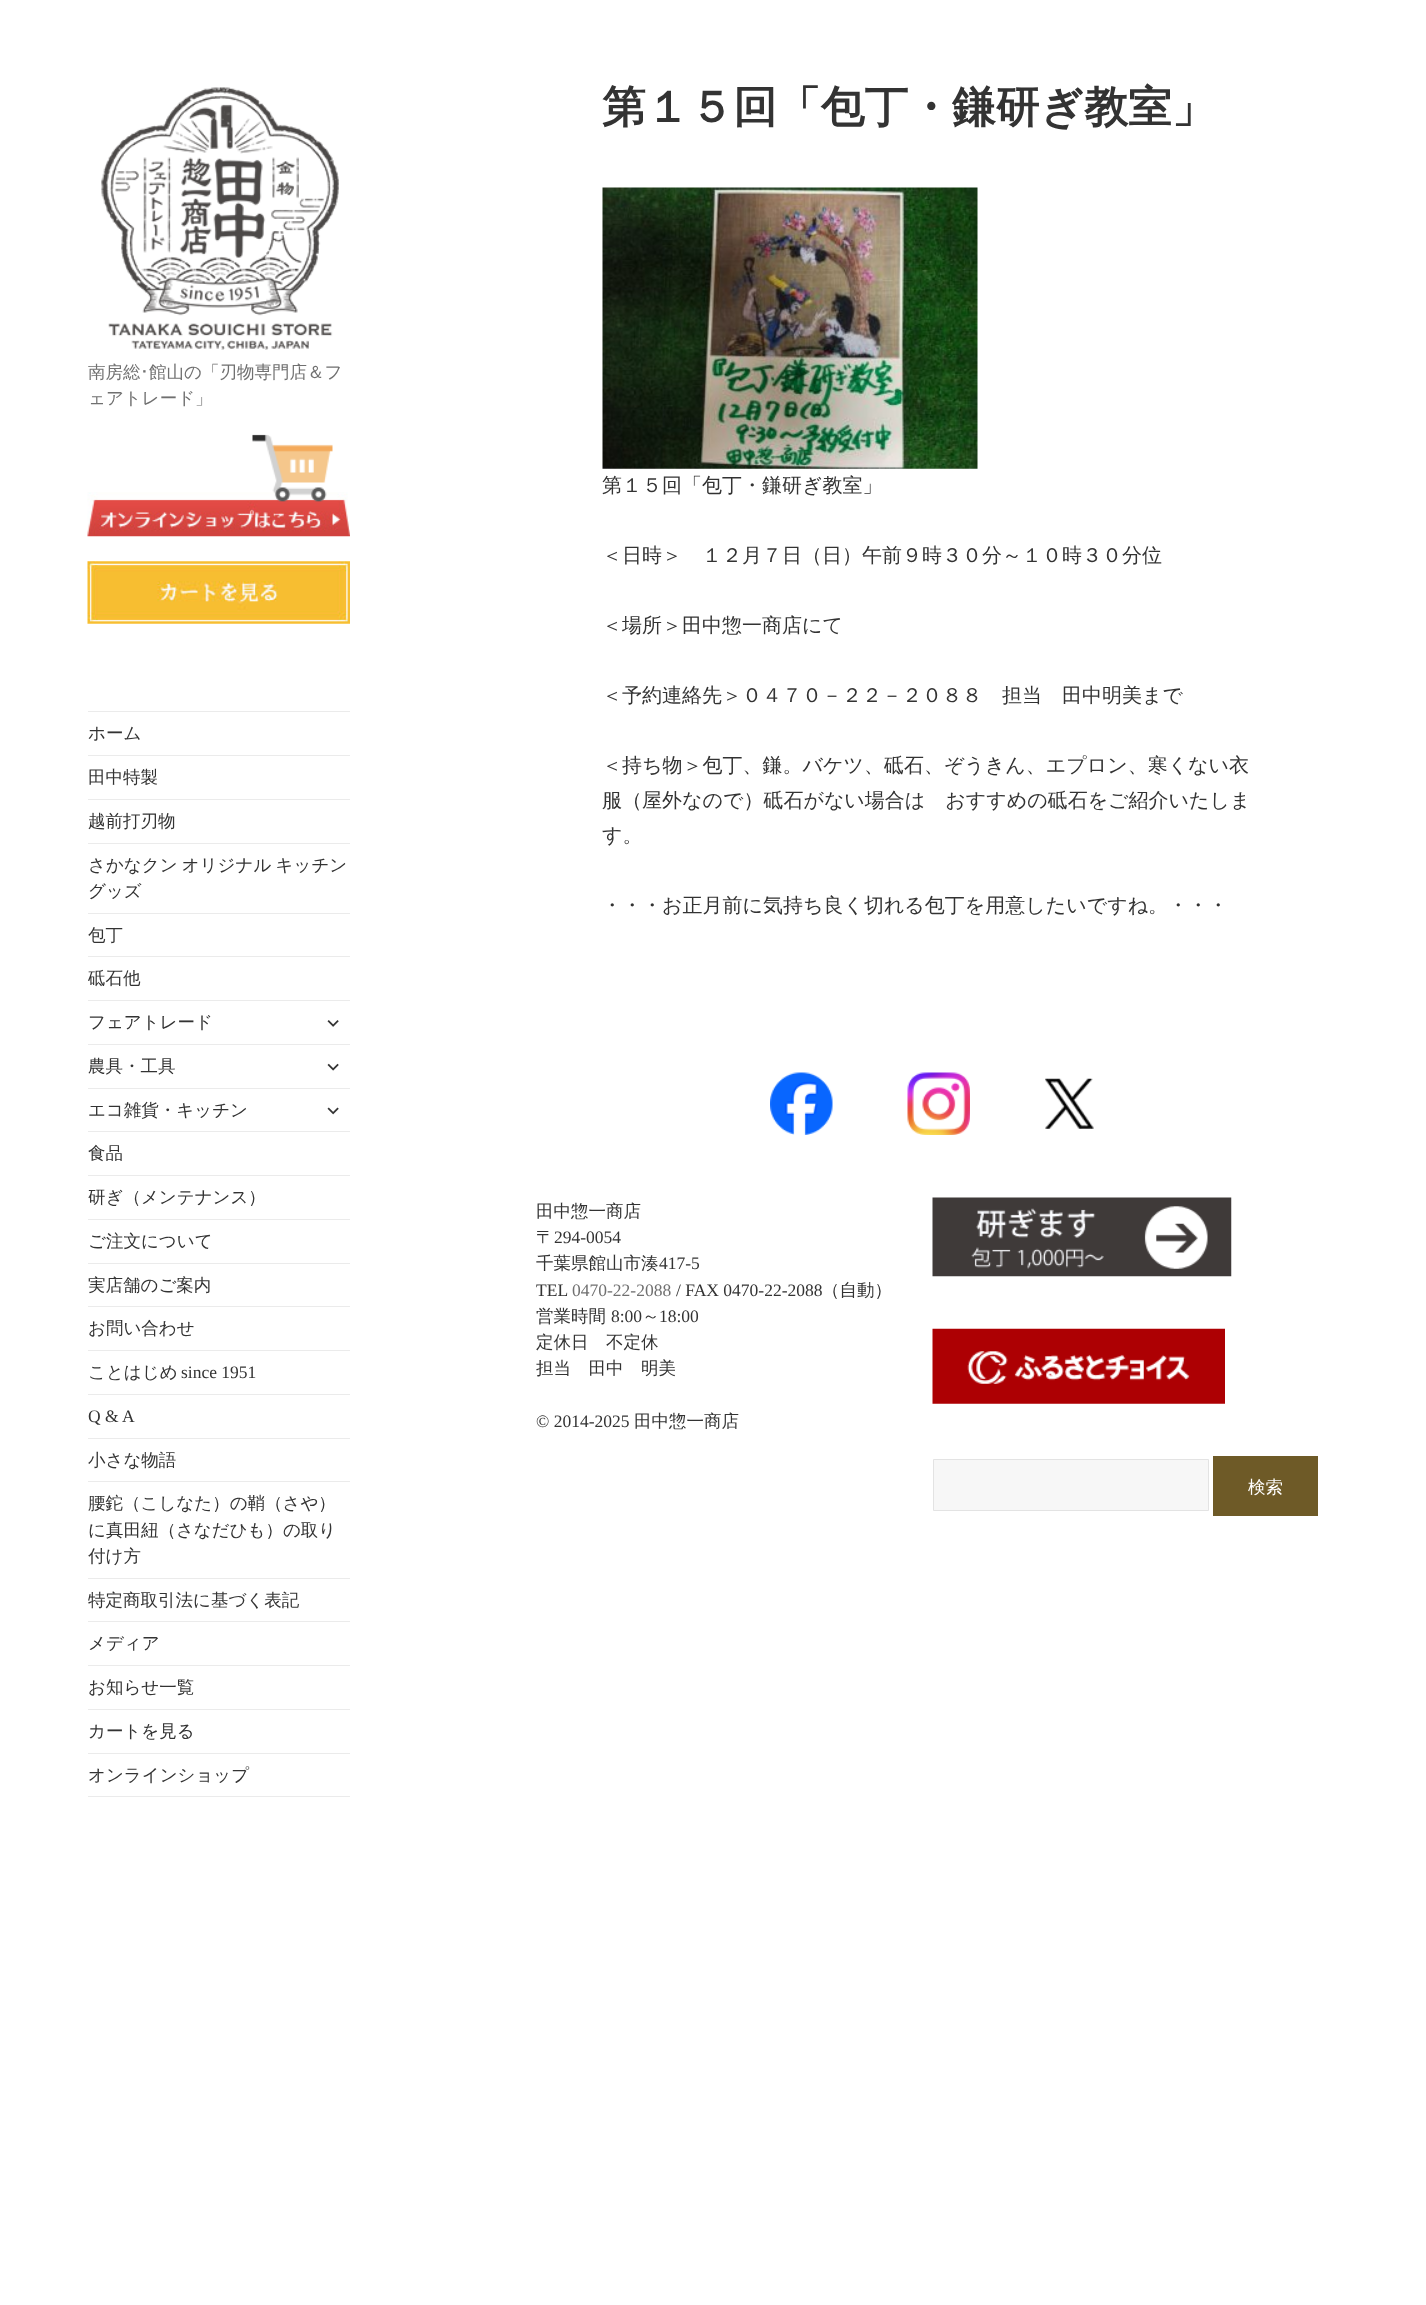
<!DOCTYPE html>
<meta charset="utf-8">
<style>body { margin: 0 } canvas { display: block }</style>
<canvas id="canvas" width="1426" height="2305"></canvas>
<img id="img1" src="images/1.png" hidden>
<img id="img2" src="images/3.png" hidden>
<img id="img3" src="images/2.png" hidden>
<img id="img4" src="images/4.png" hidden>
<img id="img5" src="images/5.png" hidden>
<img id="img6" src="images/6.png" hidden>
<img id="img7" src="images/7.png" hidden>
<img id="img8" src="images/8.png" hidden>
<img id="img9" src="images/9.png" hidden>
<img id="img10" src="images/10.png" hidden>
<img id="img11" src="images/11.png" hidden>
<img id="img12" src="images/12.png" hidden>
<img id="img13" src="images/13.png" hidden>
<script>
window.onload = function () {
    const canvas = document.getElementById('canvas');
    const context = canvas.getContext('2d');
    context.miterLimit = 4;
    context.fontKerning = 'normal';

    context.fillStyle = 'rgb(255, 255, 255)';
    context.fillRect(0, 0, 1426, 2305);
    context.drawImage(document.getElementById('img1'), 101, 87, 238, 263);
    context.drawImage(document.getElementById('img2'), 87, 492, 263, 45);
    context.drawImage(document.getElementById('img3'), 252, 434, 81, 68);
    context.drawImage(document.getElementById('img4'), 87, 561, 263, 63);
    context.fillStyle = 'rgb(235, 235, 235)';
    context.fillRect(88, 711, 262, 1);
    context.fillRect(88, 1796, 262, 1);
    context.fillRect(88, 755, 262, 1);
    context.fillRect(88, 799, 262, 1);
    context.fillRect(88, 843, 262, 1);
    context.fillRect(88, 913, 262, 1);
    context.fillRect(88, 956, 262, 1);
    context.fillRect(88, 1000, 262, 1);
    context.drawImage(document.getElementById('img5'), 327, 1020, 12, 7);
    context.fillRect(88, 1044, 262, 1);
    context.drawImage(document.getElementById('img6'), 327, 1063, 12, 8);
    context.fillRect(88, 1088, 262, 1);
    context.drawImage(document.getElementById('img7'), 327, 1107, 12, 8);
    context.fillRect(88, 1131, 262, 1);
    context.fillRect(88, 1175, 262, 1);
    context.fillRect(88, 1219, 262, 1);
    context.fillRect(88, 1263, 262, 1);
    context.fillRect(88, 1306, 262, 1);
    context.fillRect(88, 1350, 262, 1);
    context.fillRect(88, 1394, 262, 1);
    context.fillRect(88, 1438, 262, 1);
    context.fillRect(88, 1481, 262, 1);
    context.fillRect(88, 1578, 262, 1);
    context.fillRect(88, 1621, 262, 1);
    context.fillRect(88, 1665, 262, 1);
    context.fillRect(88, 1709, 262, 1);
    context.fillRect(88, 1753, 262, 1);
    context.drawImage(document.getElementById('img8'), 602, 187, 376, 282);
    context.drawImage(document.getElementById('img9'), 770, 1072, 63, 63);
    context.drawImage(document.getElementById('img10'), 907, 1072, 63, 63);
    context.drawImage(document.getElementById('img11'), 1045, 1078, 49, 51);
    context.drawImage(document.getElementById('img12'), 932, 1197, 300, 80);
    context.drawImage(document.getElementById('img13'), 932, 1328, 293, 76);
    context.fillStyle = 'rgb(247, 247, 247)';
    context.beginPath();
    context.rect(933.5, 1459.5, 275, 51);
    context.fill();
    context.strokeStyle = 'rgb(227, 227, 227)';
    context.stroke();
    context.fillStyle = 'rgb(110, 90, 39)';
    context.fillRect(1213, 1456, 105, 60);
    context.font = '500 17.5px WenQuanYi Zen Hei';
    context.fillStyle = 'rgb(112, 112, 112)';
    context.fillText('南房総', 88, 378);
    context.font = '17.5px IPAPGothic';
    context.fillText('･', 140, 378);
    context.font = '500 17.5px WenQuanYi Zen Hei';
    context.fillText('館山の「刃物専門店＆フ', 149, 378);
    context.fillText('ェアトレード」', 88, 404);
    context.fillStyle = 'rgb(51, 51, 51)';
    context.fillText('ホーム', 88, 739);
    context.fillText('田中特製', 88, 783);
    context.fillText('越前打刃物', 88, 827);
    context.wordSpacing = '-1px';
    context.fillText('さかなクン オリジナル キッチン', 88, 871);
    context.wordSpacing = '0px';
    context.fillText('グッズ', 88, 897);
    context.fillText('包丁', 88, 941);
    context.fillText('砥石他', 88, 984);
    context.fillText('フェアトレード', 88, 1028);
    context.fillText('農具・工具', 88, 1072);
    context.fillText('エコ雑貨・キッチン', 88, 1116);
    context.fillText('食品', 88, 1159);
    context.fillText('研ぎ（メンテナンス）', 88, 1203);
    context.fillText('ご注文について', 88, 1247);
    context.fillText('実店舗のご案内', 88, 1291);
    context.fillText('お問い合わせ', 88, 1334);
    context.fillText('ことはじめ', 88, 1378);
    context.font = '17.5px Liberation Serif';
    context.fillText('since 1951', 181, 1378);
    context.fillText('Q & A', 88, 1422);
    context.font = '500 17.5px WenQuanYi Zen Hei';
    context.fillText('小さな物語', 88, 1466);
    context.fillText('腰鉈（こしなた）の鞘（さや）', 88, 1509);
    context.fillText('に真田紐（さなだひも）の取り', 88, 1536);
    context.fillText('付け方', 88, 1562);
    context.fillText('特定商取引法に基づく表記', 88, 1606);
    context.fillText('メディア', 88, 1649);
    context.fillText('お知らせ一覧', 88, 1693);
    context.fillText('カートを見る', 88, 1737);
    context.fillText('オンラインショップ', 88, 1781);
    context.font = 'bold 43.75px WenQuanYi Zen Hei';
    context.fillText('第１５回「包丁・鎌研ぎ教室」', 602, 122);
    context.font = '500 20px WenQuanYi Zen Hei';
    context.fillText('第１５回「包丁・鎌研ぎ教室」', 602, 492);
    context.fillText('＜日時＞　１２月７日（日）午前９時３０分～１０時３０分位', 602, 562);
    context.fillText('＜場所＞田中惣一商店にて', 602, 632);
    context.fillText('＜予約連絡先＞０４７０－２２－２０８８　担当　田中明美まで', 602, 702);
    context.fillText('＜持ち物＞包丁、鎌。バケツ、砥石、ぞうきん、エプロン、寒くない衣', 602, 772);
    context.fillText('服（屋外なので）砥石がない場合は　おすすめの砥石をご紹介いたしま', 602, 807);
    context.fillText('す。', 602, 842);
    context.fillText('・・・お正月前に気持ち良く切れる包丁を用意したいですね。・・・', 602, 912);
    context.font = '500 17.5px WenQuanYi Zen Hei';
    context.fillText('田中惣一商店', 536, 1217);
    context.fillText('〒', 536, 1243);
    context.font = '17.5px Liberation Serif';
    context.fillText('294-0054', 554, 1243);
    context.font = '500 17.5px WenQuanYi Zen Hei';
    context.fillText('千葉県館山市湊', 536, 1269);
    context.font = '17.5px Liberation Serif';
    context.fillText('417-5', 659, 1269);
    context.fillText('TEL', 536, 1296);
    context.fillStyle = 'rgb(112, 112, 112)';
    context.fillText('0470-22-2088', 572, 1296);
    context.fillStyle = 'rgb(51, 51, 51)';
    context.fillText('/ FAX 0470-22-2088', 676, 1296);
    context.font = '500 17.5px WenQuanYi Zen Hei';
    context.fillText('（自動）', 822, 1296);
    context.fillText('営業時間', 536, 1322);
    context.font = '17.5px Liberation Serif';
    context.fillText('8:00', 611, 1322);
    context.font = '500 17.5px WenQuanYi Zen Hei';
    context.fillText('～', 642, 1322);
    context.font = '17.5px Liberation Serif';
    context.fillText('18:00', 659, 1322);
    context.font = '500 17.5px WenQuanYi Zen Hei';
    context.fillText('定休日　不定休', 536, 1348);
    context.fillText('担当　田中　明美', 536, 1374);
    context.font = '17.5px Liberation Serif';
    context.fillText('© 2014-2025', 536, 1427);
    context.font = '500 17.5px WenQuanYi Zen Hei';
    context.fillText('田中惣一商店', 634, 1427);
    context.fillStyle = 'rgb(255, 255, 255)';
    context.fillText('検索', 1248, 1493);
};
</script>
